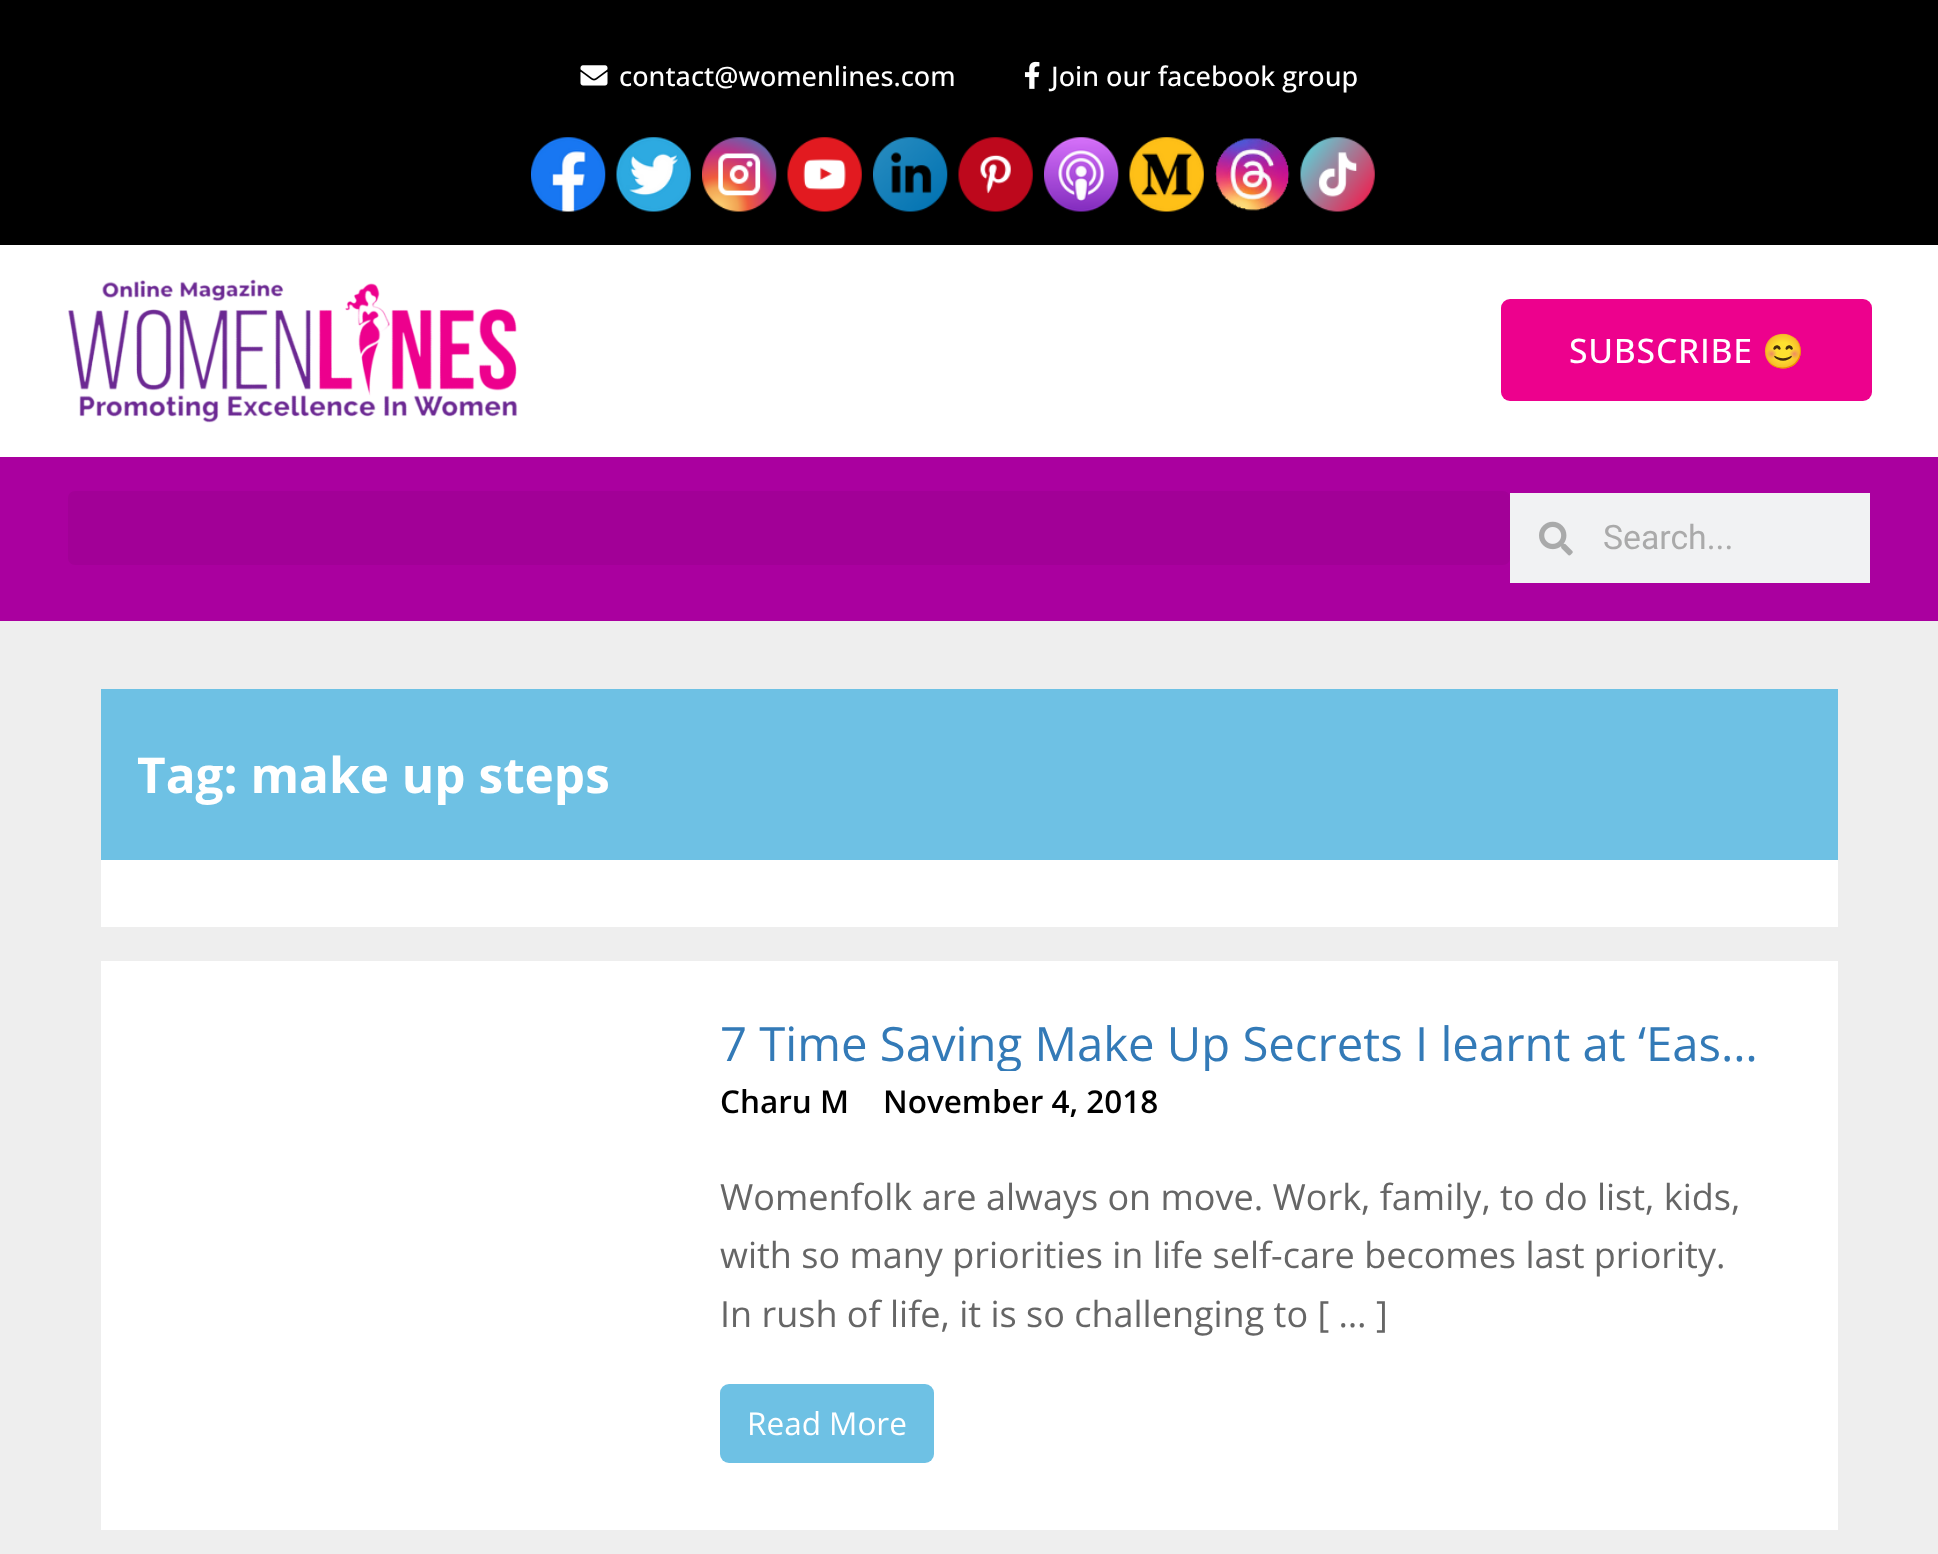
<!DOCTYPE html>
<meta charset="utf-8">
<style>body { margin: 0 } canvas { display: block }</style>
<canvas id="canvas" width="1938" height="1554"></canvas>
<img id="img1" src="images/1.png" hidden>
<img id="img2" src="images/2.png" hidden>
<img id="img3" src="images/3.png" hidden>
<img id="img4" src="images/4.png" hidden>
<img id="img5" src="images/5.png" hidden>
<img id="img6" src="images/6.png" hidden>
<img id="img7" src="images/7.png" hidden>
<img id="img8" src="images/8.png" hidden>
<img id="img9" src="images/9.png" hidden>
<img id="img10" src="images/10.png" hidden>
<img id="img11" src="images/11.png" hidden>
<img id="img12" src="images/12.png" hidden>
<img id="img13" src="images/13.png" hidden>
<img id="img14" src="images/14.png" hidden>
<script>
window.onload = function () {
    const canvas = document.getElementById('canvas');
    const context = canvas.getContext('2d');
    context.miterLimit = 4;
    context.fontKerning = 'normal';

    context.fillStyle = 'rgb(238, 238, 238)';
    context.fillRect(0, 0, 1938, 1554);
    context.fillStyle = 'rgb(0, 0, 0)';
    context.fillRect(0, 0, 1938, 245);
    context.drawImage(document.getElementById('img1'), 580, 65, 28, 21);
    context.drawImage(document.getElementById('img2'), 1024, 61, 16, 28);
    context.drawImage(document.getElementById('img3'), 531, 137, 75, 75);
    context.drawImage(document.getElementById('img4'), 616, 137, 75, 75);
    context.drawImage(document.getElementById('img5'), 702, 137, 75, 75);
    context.drawImage(document.getElementById('img6'), 787, 137, 75, 75);
    context.drawImage(document.getElementById('img7'), 873, 137, 75, 75);
    context.drawImage(document.getElementById('img8'), 958, 137, 75, 75);
    context.drawImage(document.getElementById('img9'), 1044, 137, 75, 75);
    context.drawImage(document.getElementById('img10'), 1129, 137, 75, 75);
    context.drawImage(document.getElementById('img11'), 1215, 138, 75, 73);
    context.drawImage(document.getElementById('img12'), 1300, 137, 75, 75);
    context.fillStyle = 'rgb(255, 255, 255)';
    context.fillRect(0, 245, 1938, 212);
    context.drawImage(document.getElementById('img13'), 68, 279, 450, 144);
    context.fillStyle = 'rgb(237, 1, 141)';
    context.beginPath();
    context.roundRect(1501, 299, 371, 102, 9);
    context.fill();
    context.fillStyle = 'rgb(170, 0, 159)';
    context.fillRect(0, 457, 1938, 164);
    context.fillStyle = 'rgb(162, 0, 151)';
    context.beginPath();
    context.roundRect(68, 491, 1442, 74, 7);
    context.fill();
    context.fillStyle = 'rgb(241, 242, 243)';
    context.fillRect(1510, 493, 360, 90);
    context.drawImage(document.getElementById('img14'), 1539, 521, 34, 35);
    context.fillStyle = 'rgb(255, 255, 255)';
    context.fillRect(101, 860, 1737, 67);
    context.fillStyle = 'rgb(110, 193, 228)';
    context.fillRect(101, 689, 1737, 171);
    context.fillStyle = 'rgb(255, 255, 255)';
    context.fillRect(101, 961, 1737, 569);
    context.fillStyle = 'rgb(110, 193, 228)';
    context.beginPath();
    context.roundRect(720, 1384, 214, 79, 9);
    context.fill();
    context.font = '500 27px Open Sans';
    context.fillStyle = 'rgb(255, 255, 255)';
    context.fillText('contact@womenlines.com', 619, 86);
    context.fillText('Join our facebook group', 1051, 86);
    context.letterSpacing = '0.75px';
    context.font = '500 33.75px Open Sans';
    context.fillText('SUBSCRIBE', 1569, 363);
    context.font = '33.75px Noto Color Emoji';
    context.fillText('😊', 1762, 363);
    context.letterSpacing = '0px';
    context.font = '33.75px Roboto';
    context.fillStyle = 'rgb(170, 170, 170)';
    context.fillText('Search...', 1603, 549);
    context.font = 'bold 49.5px Open Sans';
    context.fillStyle = 'rgb(255, 255, 255)';
    context.fillText('Tag: make up steps', 137, 793);
    context.save();
    context.beginPath();
    context.rect(720, 1017, 1040, 54);
    context.clip();
    context.font = '47.25px Open Sans';
    context.fillStyle = 'rgb(51, 122, 183)';
    context.fillText('7 Time Saving Make Up Secrets I learnt at ‘Eas…', 720, 1061);
    context.restore();
    context.font = '600 31.5px Open Sans';
    context.fillStyle = 'rgb(0, 0, 0)';
    context.fillText('Charu M', 720, 1113);
    context.fillText('November 4, 2018', 883, 1113);
    context.font = '36px Open Sans';
    context.fillStyle = 'rgb(102, 102, 102)';
    context.fillText('Womenfolk are always on move. Work, family, to do list, kids,', 720, 1210);
    context.fillText('with so many priorities in life self-care becomes last priority.', 720, 1268);
    context.fillText('In rush of life, it is so challenging to [ … ]', 720, 1327);
    context.font = '31.5px Open Sans';
    context.fillStyle = 'rgb(255, 255, 255)';
    context.fillText('Read More', 747, 1435);
};
</script>
